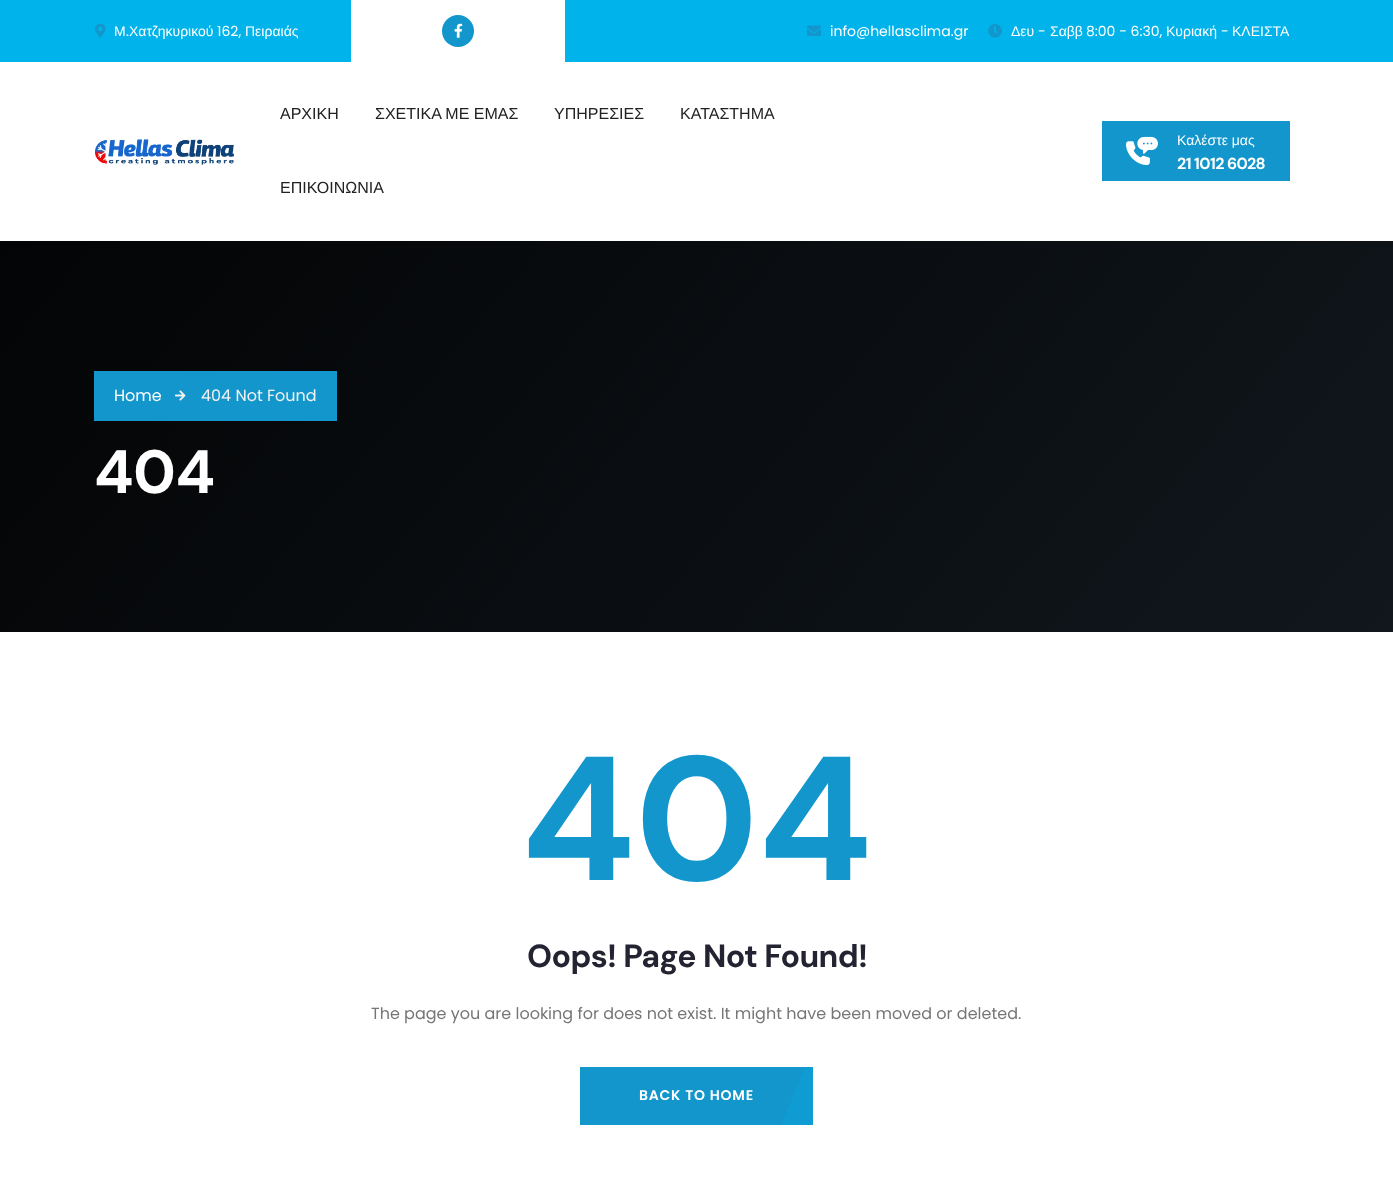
<!DOCTYPE html>
<meta charset="utf-8">
<style>body { margin: 0 } canvas { display: block }</style>
<canvas id="canvas" width="1393" height="1188"></canvas>
<img id="img1" src="images/1.png" hidden>
<img id="img2" src="images/2.png" hidden>
<img id="img3" src="images/3.png" hidden>
<img id="img4" src="images/4.png" hidden>
<img id="img5" src="images/5.png" hidden>
<img id="img6" src="images/6.png" hidden>
<img id="img7" src="images/7.png" hidden>
<script>
window.onload = function () {
    const canvas = document.getElementById('canvas');
    const context = canvas.getContext('2d');
    context.miterLimit = 4;
    context.fontKerning = 'normal';
    let gradient;

    context.fillStyle = 'rgb(255, 255, 255)';
    context.fillRect(0, 0, 1393, 1188);
    context.fillStyle = 'rgb(0, 179, 234)';
    context.fillRect(0, 0, 1393, 62);
    context.drawImage(document.getElementById('img1'), 95, 23, 11, 15);
    context.fillStyle = 'rgb(255, 255, 255)';
    context.fillRect(351, 0, 214, 62);
    context.fillStyle = 'rgb(18, 150, 204)';
    context.beginPath();
    context.arc(458, 31, 16, 0, 2 * Math.PI);
    context.fill();
    context.drawImage(document.getElementById('img2'), 454, 23, 9, 15);
    context.drawImage(document.getElementById('img3'), 807, 25, 14, 11);
    context.drawImage(document.getElementById('img4'), 988, 24, 14, 14);
    context.drawImage(document.getElementById('img5'), 95, 139, 139, 26);
    context.fillRect(1102, 121, 188, 60);
    context.drawImage(document.getElementById('img6'), 1126, 136, 32, 30);
    gradient = context.createLinearGradient(1201, 860, 192, 13);
    gradient.addColorStop(0, 'rgb(17, 23, 29)');
    gradient.addColorStop(1, 'rgb(3, 4, 5)');
    context.fillStyle = gradient;
    context.fillRect(0, 241, 1393, 391);
    context.fillStyle = 'rgb(18, 150, 204)';
    context.fillRect(94, 371, 243, 50);
    context.drawImage(document.getElementById('img7'), 175, 390, 11, 11);
    context.fillRect(580, 1067, 225, 58);
    context.save();
    context.beginPath();
    context.rect(580, 1067, 233, 58);
    context.clip();
    context.fillStyle = 'rgb(14, 156, 210)';
    context.beginPath();
    context.moveTo(805, 1067);
    context.lineTo(840, 1067);
    context.lineTo(816, 1125);
    context.lineTo(781, 1125);
    context.closePath();
    context.fill();
    context.restore();
    context.font = '14px Liberation Sans';
    context.fillStyle = 'rgb(255, 255, 255)';
    context.fillText('Μ', 114, 36);
    context.font = '14px Poppins';
    context.fillText('.', 126, 36);
    context.font = '14px Liberation Sans';
    context.fillText('Χατζηκυρικού', 129, 36);
    context.font = '14px Poppins';
    context.fillText('162,', 217, 36);
    context.font = '14px Liberation Sans';
    context.fillText('Πειραιάς', 245, 36);
    context.font = '14px Poppins';
    context.fillText('info@hellasclima.gr', 830, 36);
    context.font = '14px Liberation Sans';
    context.fillText('Δευ', 1011, 36);
    context.font = '14px Poppins';
    context.fillText('-', 1038, 36);
    context.font = '14px Liberation Sans';
    context.fillText('Σαββ', 1050, 36);
    context.font = '14px Poppins';
    context.fillText('8:00 - 6:30,', 1086, 36);
    context.font = '14px Liberation Sans';
    context.fillText('Κυριακή', 1166, 36);
    context.font = '14px Poppins';
    context.fillText('-', 1221, 36);
    context.font = '14px Liberation Sans';
    context.fillText('ΚΛΕΙΣΤΑ', 1232, 36);
    context.font = '16px Liberation Sans';
    context.fillStyle = 'rgb(34, 34, 34)';
    context.fillText('ΑΡΧΙΚΗ', 280, 119);
    context.fillText('ΣΧΕΤΙΚΑ ΜΕ ΕΜΑΣ', 375, 119);
    context.fillText('ΥΠΗΡΕΣΙΕΣ', 554, 119);
    context.fillText('ΚΑΤΑΣΤΗΜΑ', 680, 119);
    context.fillText('ΕΠΙΚΟΙΝΩΝΙΑ', 280, 193);
    context.font = '14px Liberation Sans';
    context.fillStyle = 'rgb(255, 255, 255)';
    context.fillText('Καλέστε μας', 1177, 145);
    context.letterSpacing = '-0.6px';
    context.font = 'bold 16px DM Sans';
    context.fillText('21 1012 6028', 1177, 169);
    context.letterSpacing = '0px';
    context.font = '16px Poppins';
    context.fillText('Home', 114, 401);
    context.fillStyle = 'rgb(242, 242, 242)';
    context.fillText('404 Not Found', 201, 401);
    context.letterSpacing = '-0.6px';
    context.font = 'bold 61px DM Sans';
    context.fillStyle = 'rgb(255, 255, 255)';
    context.fillText('404', 94, 493);
    context.font = 'bold 176px DM Sans';
    context.fillStyle = 'rgb(18, 150, 204)';
    context.fillText('404', 521, 880);
    context.font = 'bold 32px DM Sans';
    context.fillStyle = 'rgb(35, 35, 49)';
    context.fillText('Oops! Page Not Found!', 527, 967);
    context.letterSpacing = '0px';
    context.font = '16px Poppins';
    context.fillStyle = 'rgb(118, 118, 118)';
    context.fillText('The page you are looking for does not exist. It might have been moved or deleted.', 371, 1019);
    context.letterSpacing = '0.75px';
    context.font = '600 14px Poppins';
    context.fillStyle = 'rgb(255, 255, 255)';
    context.fillText('BACK TO HOME', 639, 1100);
};
</script>
